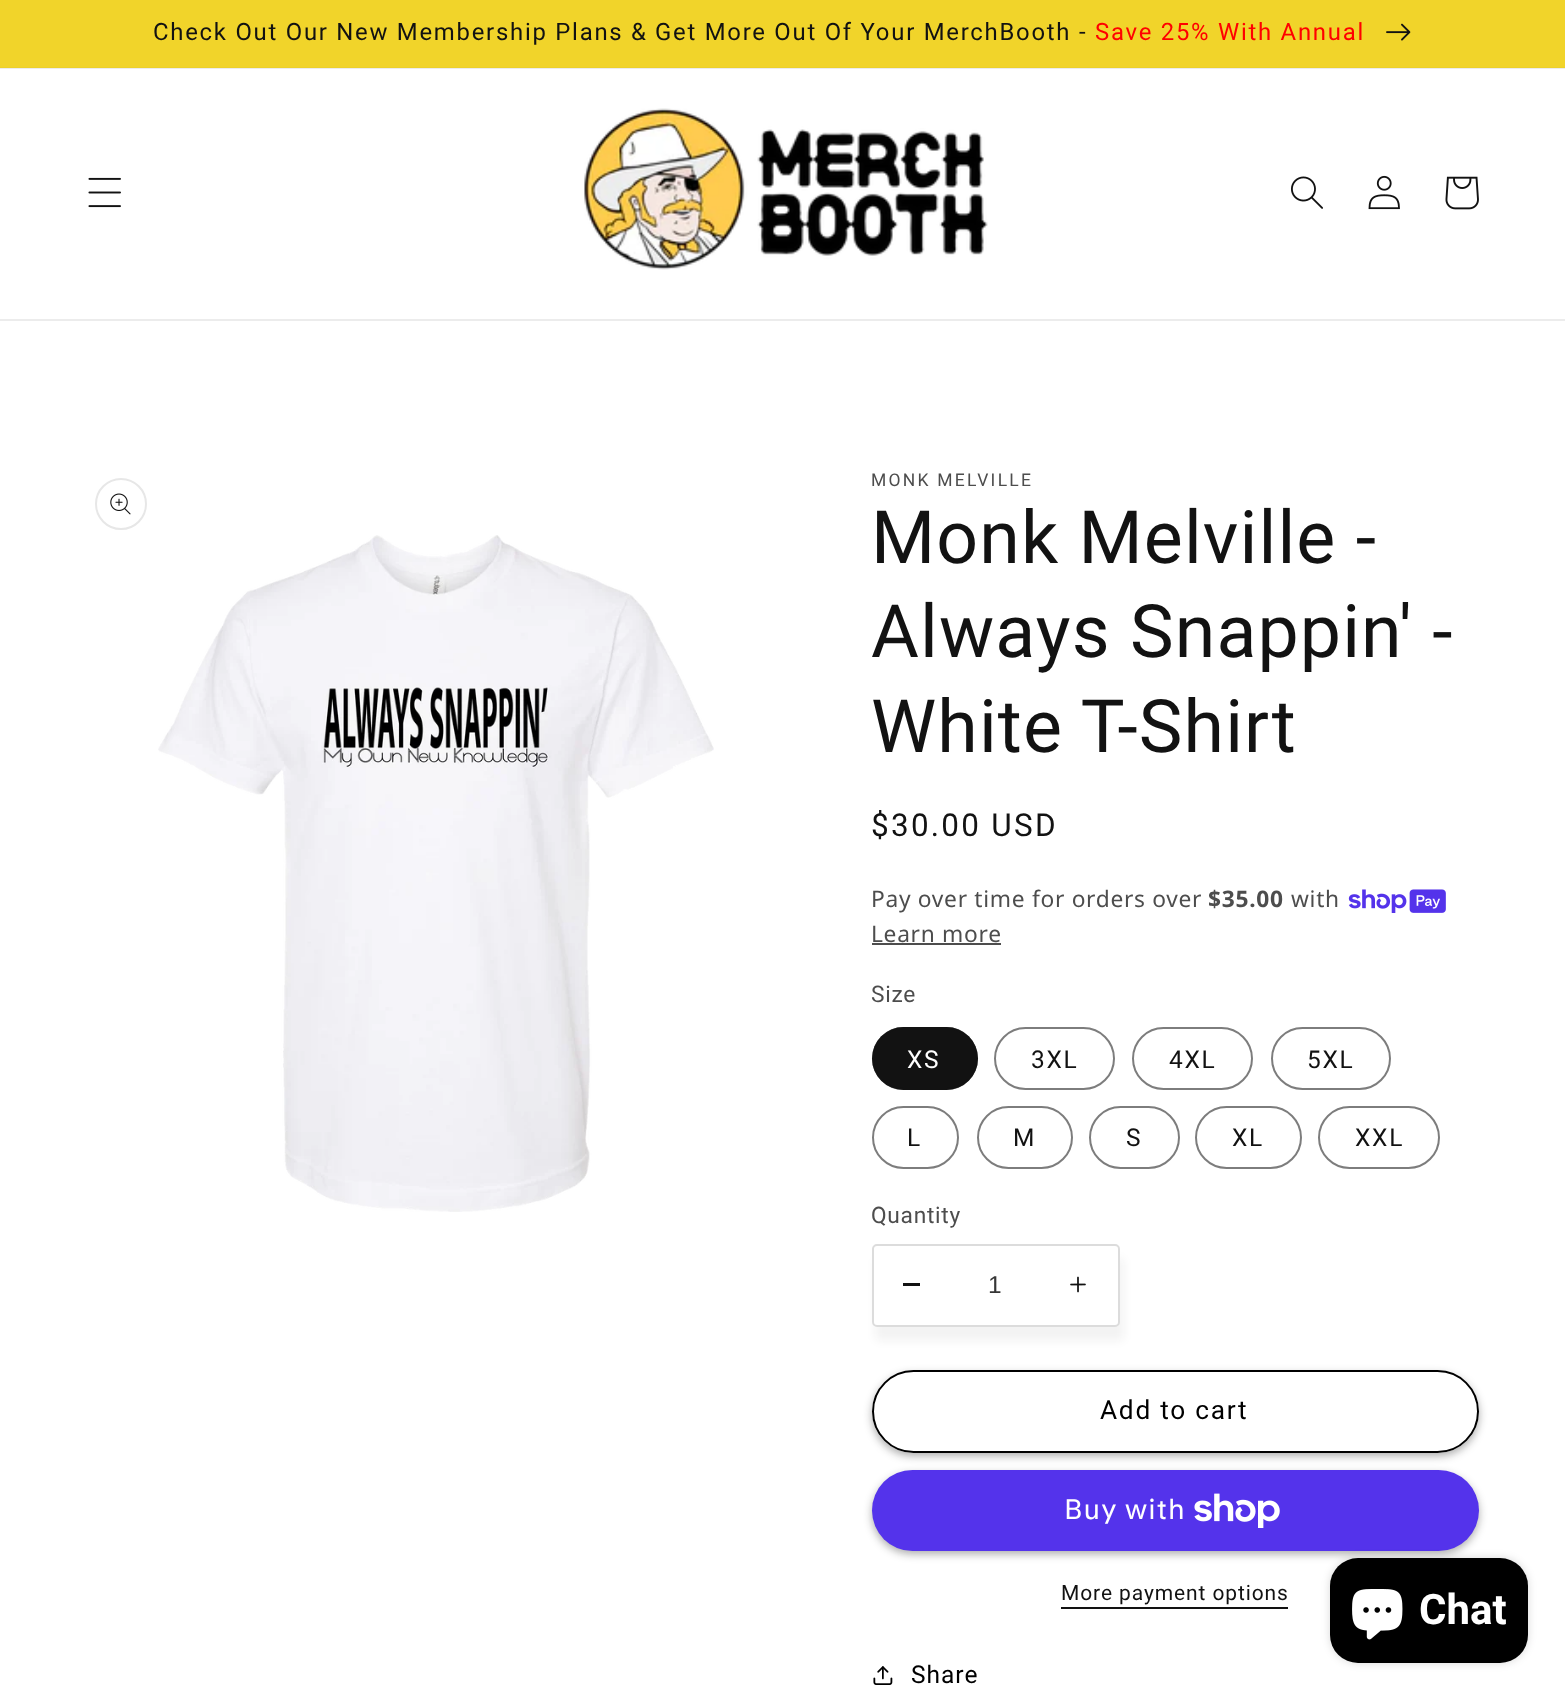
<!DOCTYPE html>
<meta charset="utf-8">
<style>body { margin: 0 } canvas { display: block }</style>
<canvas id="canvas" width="1565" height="1698"></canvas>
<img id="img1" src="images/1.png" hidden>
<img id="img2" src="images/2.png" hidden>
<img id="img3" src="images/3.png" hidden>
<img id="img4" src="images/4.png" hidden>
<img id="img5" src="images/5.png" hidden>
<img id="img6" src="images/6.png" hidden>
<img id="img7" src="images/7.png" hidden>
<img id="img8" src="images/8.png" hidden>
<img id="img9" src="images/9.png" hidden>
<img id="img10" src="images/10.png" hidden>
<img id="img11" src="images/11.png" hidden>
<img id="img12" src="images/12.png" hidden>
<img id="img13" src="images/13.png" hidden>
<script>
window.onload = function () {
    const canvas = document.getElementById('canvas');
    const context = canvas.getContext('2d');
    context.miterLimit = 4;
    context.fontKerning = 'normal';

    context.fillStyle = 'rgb(255, 255, 255)';
    context.fillRect(0, 0, 1565, 1698);
    context.fillStyle = 'rgb(236, 236, 236)';
    context.fillRect(0, 68, 1565, 1);
    context.fillStyle = 'rgb(236, 208, 42)';
    context.fillRect(0, 67, 1565, 1);
    context.fillStyle = 'rgb(241, 212, 42)';
    context.fillRect(0, 0, 1565, 67);
    context.drawImage(document.getElementById('img1'), 1386, 23, 25, 18);
    context.fillStyle = 'rgb(236, 236, 236)';
    context.fillRect(0, 319, 1565, 2);
    context.drawImage(document.getElementById('img2'), 88, 177, 33, 31);
    context.drawImage(document.getElementById('img3'), 584, 108, 404, 162);
    context.drawImage(document.getElementById('img4'), 1291, 176, 32, 33);
    context.drawImage(document.getElementById('img5'), 1368, 175, 32, 35);
    context.drawImage(document.getElementById('img6'), 1445, 176, 34, 34);
    context.beginPath();
    context.arc(121, 504, 25, 0, 2 * Math.PI);
    context.strokeStyle = 'rgb(231, 231, 231)';
    context.lineWidth = 2;
    context.stroke();
    context.drawImage(document.getElementById('img7'), 110, 493, 21, 22);
    context.drawImage(document.getElementById('img8'), 158, 535, 556, 677);
    context.drawImage(document.getElementById('img9'), 1348, 889, 98, 24);
    context.fillStyle = 'rgb(77, 77, 77)';
    context.fillRect(872, 943, 129, 2);
    context.fillStyle = 'rgb(18, 18, 18)';
    context.beginPath();
    context.roundRect(872, 1027, 106, 63, 31.5);
    context.fill();
    context.beginPath();
    context.roundRect(873, 1028, 104, 61, 30.5);
    context.strokeStyle = 'rgba(18, 18, 18, 0.55)';
    context.stroke();
    context.beginPath();
    context.roundRect(995, 1028, 119, 61, 30.5);
    context.strokeStyle = 'rgb(125, 125, 125)';
    context.stroke();
    context.beginPath();
    context.roundRect(1133, 1028, 119, 61, 30.5);
    context.stroke();
    context.beginPath();
    context.roundRect(1272, 1028, 118, 61, 30.5);
    context.stroke();
    context.beginPath();
    context.roundRect(873, 1107, 85, 61, 30.5);
    context.stroke();
    context.beginPath();
    context.roundRect(978, 1107, 94, 61, 30.5);
    context.stroke();
    context.beginPath();
    context.roundRect(1090, 1107, 89, 61, 30.5);
    context.stroke();
    context.beginPath();
    context.roundRect(1196, 1107, 105, 61, 30.5);
    context.stroke();
    context.beginPath();
    context.roundRect(1319, 1107, 120, 61, 30.5);
    context.stroke();
    context.fillStyle = 'rgba(18, 18, 18, 0.05)';
    context.filter = 'blur(4.5px)';
    context.beginPath();
    context.roundRect(875, 1258, 249, 83, 5);
    context.fill();
    context.filter = 'none';
    context.fillStyle = 'rgb(255, 255, 255)';
    context.beginPath();
    context.roundRect(872, 1244, 248, 83, 5);
    context.fill();
    context.fillStyle = 'rgb(18, 18, 18)';
    context.fillRect(903, 1283, 17, 3);
    context.drawImage(document.getElementById('img10'), 1070, 1276, 16, 17);
    context.beginPath();
    context.roundRect(873, 1245, 246, 81, 4);
    context.strokeStyle = 'rgba(18, 18, 18, 0.15)';
    context.stroke();
    context.fillStyle = 'rgba(18, 18, 18, 0.35)';
    context.filter = 'blur(4.5px)';
    context.beginPath();
    context.roundRect(872, 1374, 607, 82, 41);
    context.fill();
    context.filter = 'none';
    context.fillStyle = 'rgb(255, 255, 255)';
    context.beginPath();
    context.roundRect(872, 1370, 607, 83, 41.5);
    context.fill();
    context.beginPath();
    context.roundRect(873, 1371, 605, 81, 40.5);
    context.strokeStyle = 'rgb(255, 255, 255)';
    context.stroke();
    context.beginPath();
    context.roundRect(873, 1371, 605, 81, 40.5);
    context.strokeStyle = 'rgb(0, 0, 0)';
    context.stroke();
    context.fillStyle = 'rgba(18, 18, 18, 0.35)';
    context.filter = 'blur(4.5px)';
    context.beginPath();
    context.roundRect(872, 1474, 607, 80, 40);
    context.fill();
    context.filter = 'none';
    context.fillStyle = 'rgb(84, 51, 235)';
    context.beginPath();
    context.roundRect(872, 1470, 607, 81, 40.5);
    context.fill();
    context.drawImage(document.getElementById('img11'), 1194, 1493, 86, 35);
    context.fillStyle = 'rgb(18, 18, 18)';
    context.fillRect(1061, 1607, 227, 2);
    context.drawImage(document.getElementById('img12'), 873, 1666, 20, 19);
    context.fillStyle = 'rgba(0, 0, 0, 0.15)';
    context.filter = 'blur(4.5px)';
    context.beginPath();
    context.roundRect(1330, 1558, 198, 105, 28);
    context.fill();
    context.filter = 'none';
    context.fillStyle = 'rgb(0, 0, 0)';
    context.beginPath();
    context.roundRect(1330, 1558, 198, 105, 28);
    context.fill();
    context.drawImage(document.getElementById('img13'), 1352, 1589, 51, 51);
    context.letterSpacing = '1.75px';
    context.font = '23.9px Roboto';
    context.fillStyle = 'rgb(18, 18, 18)';
    context.fillText('Check Out Our New Membership Plans &', 153, 40);
    context.fillText('Get More Out Of Your MerchBooth -', 655, 40);
    context.fillStyle = 'rgb(255, 0, 0)';
    context.fillText('Save 25% With Annual', 1095, 40);
    context.letterSpacing = '2.25px';
    context.font = '17.5px Roboto';
    context.fillStyle = 'rgb(77, 77, 77)';
    context.fillText('MONK MELVILLE', 871, 486);
    context.letterSpacing = '1.1px';
    context.font = '73.5px Roboto';
    context.fillStyle = 'rgb(18, 18, 18)';
    context.fillText('Monk Melville -', 871, 563);
    context.fillText('Always Snappin\' -', 871, 657);
    context.fillText('White T-Shirt', 871, 752);
    context.letterSpacing = '2.25px';
    context.font = '31.5px Roboto';
    context.fillText('$30.00 USD', 871, 836);
    context.letterSpacing = '0.7px';
    context.font = '22.75px Noto Sans';
    context.fillStyle = 'rgb(77, 77, 77)';
    context.fillText('Pay over time for orders over', 871, 907);
    context.font = 'bold 22.75px Noto Sans';
    context.fillText('$35.00', 1208, 907);
    context.font = '22.75px Noto Sans';
    context.fillText('with', 1291, 907);
    context.fillText('Learn more', 871, 942);
    context.font = '22.75px Roboto';
    context.fillText('Size', 871, 1002);
    context.letterSpacing = '1.75px';
    context.font = '24.5px Roboto';
    context.fillStyle = 'rgb(255, 255, 255)';
    context.fillText('XS', 907, 1068);
    context.fillStyle = 'rgb(18, 18, 18)';
    context.fillText('3XL', 1031, 1068);
    context.fillText('4XL', 1169, 1068);
    context.fillText('5XL', 1307, 1068);
    context.fillText('L', 907, 1146);
    context.fillText('M', 1013, 1146);
    context.fillText('S', 1126, 1146);
    context.fillText('XL', 1232, 1146);
    context.fillText('XXL', 1355, 1146);
    context.letterSpacing = '0.7px';
    context.font = '22.75px Roboto';
    context.fillStyle = 'rgb(77, 77, 77)';
    context.fillText('Quantity', 871, 1223);
    context.letterSpacing = '0px';
    context.font = '24.5px Liberation Sans';
    context.fillStyle = 'rgb(54, 54, 54)';
    context.fillText('1', 988, 1293);
    context.letterSpacing = '1.75px';
    context.font = '26.25px Roboto';
    context.fillStyle = 'rgb(0, 0, 0)';
    context.fillText('Add to cart', 1100, 1419);
    context.letterSpacing = '1px';
    context.font = '28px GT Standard';
    context.fillStyle = 'rgb(255, 255, 255)';
    context.fillText('Buy with', 1064, 1519);
    context.letterSpacing = '0.9px';
    context.font = '21px Roboto';
    context.fillStyle = 'rgb(18, 18, 18)';
    context.fillText('More payment options', 1061, 1600);
    context.letterSpacing = '1px';
    context.font = '24.5px Roboto';
    context.fillStyle = 'rgb(0, 0, 0)';
    context.fillText('Share', 911, 1683);
    context.letterSpacing = '0px';
    context.font = 'bold 42px Roboto';
    context.fillStyle = 'rgb(255, 255, 255)';
    context.fillText('Chat', 1419, 1624);
};
</script>
